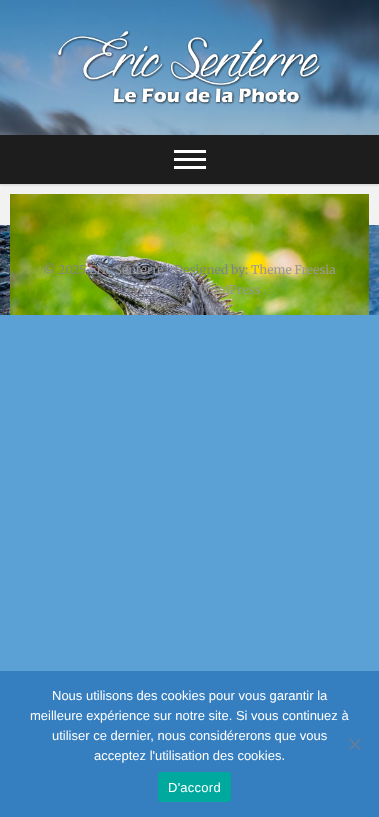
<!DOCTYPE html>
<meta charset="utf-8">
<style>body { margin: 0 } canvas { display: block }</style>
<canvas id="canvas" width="379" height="817"></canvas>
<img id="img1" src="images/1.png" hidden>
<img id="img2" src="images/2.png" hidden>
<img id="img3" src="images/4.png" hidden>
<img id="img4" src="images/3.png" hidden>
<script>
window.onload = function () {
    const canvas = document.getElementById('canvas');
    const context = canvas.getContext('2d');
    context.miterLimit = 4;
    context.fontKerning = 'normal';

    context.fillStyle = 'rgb(92, 161, 214)';
    context.fillRect(0, 0, 379, 817);
    context.drawImage(document.getElementById('img1'), 0, 0, 379, 135);
    context.drawImage(document.getElementById('img2'), 57, 30, 265, 75);
    context.fillStyle = 'rgb(242, 242, 242)';
    context.fillRect(0, 184, 379, 41);
    context.fillStyle = 'rgba(0, 0, 0, 0.15)';
    context.filter = 'blur(1px)';
    context.beginPath();
    context.rect(0, 136, 379, 49);
    context.fill();
    context.filter = 'none';
    context.fillStyle = 'rgb(29, 29, 29)';
    context.fillRect(0, 135, 379, 49);
    context.fillStyle = 'rgb(255, 255, 255)';
    context.fillRect(174, 150, 32, 3);
    context.fillRect(174, 158, 32, 3);
    context.fillRect(174, 166, 32, 3);
    context.drawImage(document.getElementById('img3'), 0, 225, 379, 90);
    context.drawImage(document.getElementById('img4'), 10, 194, 359, 121);
    context.fillStyle = 'rgb(53, 126, 191)';
    context.fillRect(0, 671, 379, 146);
    context.fillStyle = 'rgb(91, 127, 160)';
    context.beginPath();
    context.moveTo(359.5, 738.5);
    context.lineTo(361, 740);
    context.lineTo(350.5, 750.5);
    context.lineTo(349, 749);
    context.closePath();
    context.fill();
    context.beginPath();
    context.moveTo(349, 740);
    context.lineTo(350.5, 738.5);
    context.lineTo(361, 749);
    context.lineTo(359.5, 750.5);
    context.closePath();
    context.fill();
    context.fillStyle = 'rgb(0, 169, 157)';
    context.beginPath();
    context.roundRect(158, 772, 73, 30, 3);
    context.fill();
    context.font = '300 12px Merriweather';
    context.fillStyle = 'rgb(132, 132, 132)';
    context.fillText('© 2025', 43, 274);
    context.fillStyle = 'rgb(153, 153, 153)';
    context.fillText('Éric Senterre', 89, 274);
    context.fillStyle = 'rgb(132, 132, 132)';
    context.fillText('Designed by:', 174, 274);
    context.fillStyle = 'rgb(153, 153, 153)';
    context.fillText('Theme Freesia', 251, 274);
    context.fillStyle = 'rgb(132, 132, 132)';
    context.fillText('| Powered by:', 119, 294);
    context.fillStyle = 'rgb(153, 153, 153)';
    context.fillText('WordPress', 199, 294);
    context.font = '13px Liberation Sans';
    context.fillStyle = 'rgb(255, 255, 255)';
    context.fillText('Nous utilisons des cookies pour vous garantir la', 52, 700);
    context.fillText('meilleure expérience sur notre site. Si vous continuez à', 30, 720);
    context.fillText('utiliser ce dernier, nous considérerons que vous', 52, 740);
    context.fillText('acceptez l\'utilisation des cookies.', 94, 760);
    context.letterSpacing = '0.25px';
    context.fillText('D\'accord', 168, 792);
};
</script>
